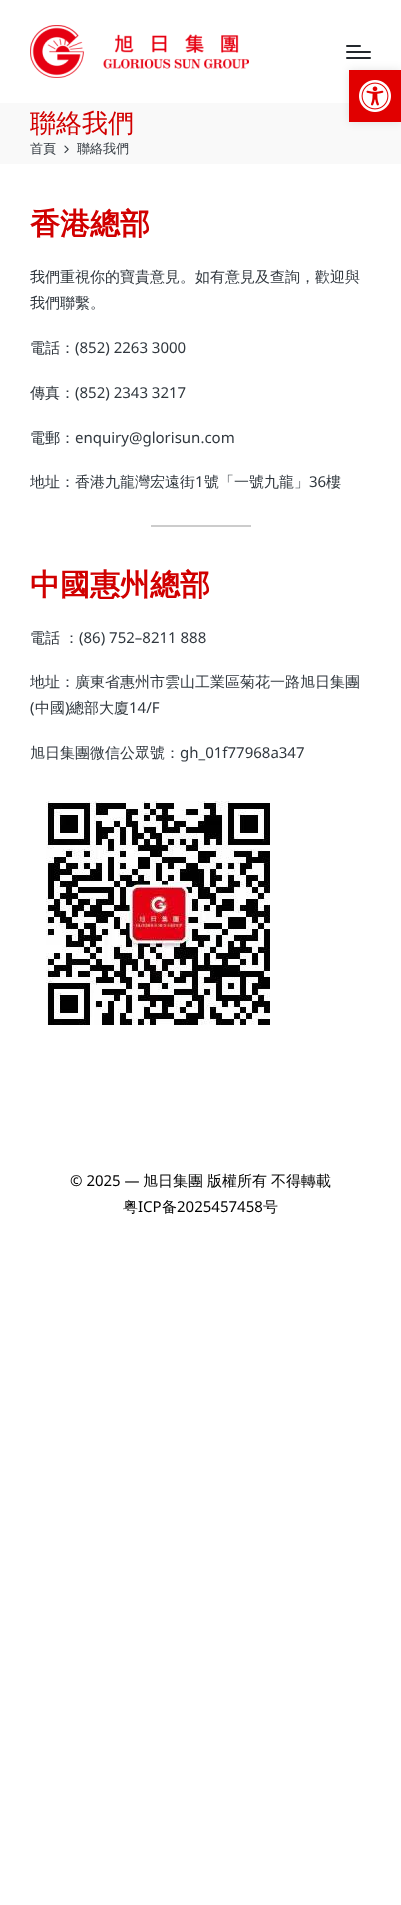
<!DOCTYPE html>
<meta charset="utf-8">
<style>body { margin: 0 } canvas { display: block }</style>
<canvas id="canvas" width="401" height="1905"></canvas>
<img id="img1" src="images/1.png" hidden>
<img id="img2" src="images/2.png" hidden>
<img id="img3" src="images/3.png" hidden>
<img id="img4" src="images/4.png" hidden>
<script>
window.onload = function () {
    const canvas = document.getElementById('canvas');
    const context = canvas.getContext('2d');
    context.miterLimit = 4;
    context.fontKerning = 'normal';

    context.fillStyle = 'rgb(255, 255, 255)';
    context.fillRect(0, 0, 401, 1905);
    context.fillStyle = 'rgb(35, 40, 45)';
    context.beginPath();
    context.roundRect(346, 57, 25, 2, 1);
    context.fill();
    context.fillStyle = 'rgb(249, 249, 249)';
    context.fillRect(0, 103, 401, 61);
    context.fillStyle = 'rgba(0, 0, 0, 0.1)';
    context.filter = 'blur(5px)';
    context.beginPath();
    context.rect(349, 70, 52, 52);
    context.fill();
    context.filter = 'none';
    context.fillStyle = 'rgb(225, 0, 0)';
    context.fillRect(349, 70, 52, 52);
    context.drawImage(document.getElementById('img1'), 359, 80, 32, 32);
    context.drawImage(document.getElementById('img2'), 30, 25, 219, 53);
    context.fillStyle = 'rgb(35, 40, 45)';
    context.beginPath();
    context.roundRect(346, 51, 25, 2, 1);
    context.fill();
    context.beginPath();
    context.roundRect(346, 45, 15, 2, 1);
    context.fill();
    context.drawImage(document.getElementById('img3'), 64, 145, 5, 9);
    context.fillStyle = 'rgb(204, 204, 204)';
    context.fillRect(151, 525, 100, 2);
    context.drawImage(document.getElementById('img4'), 46, 801, 224, 224);
    context.font = '500 26px WenQuanYi Zen Hei';
    context.fillStyle = 'rgb(209, 0, 0)';
    context.fillText('聯絡我們', 30, 132);
    context.font = '500 13px WenQuanYi Zen Hei';
    context.fillStyle = 'rgb(48, 55, 62)';
    context.fillText('首頁', 30, 153);
    context.fillText('聯絡我們', 77, 153);
    context.font = 'bold 30px WenQuanYi Zen Hei';
    context.fillStyle = 'rgb(209, 0, 0)';
    context.fillText('香港總部', 30, 234);
    context.font = '500 15px WenQuanYi Zen Hei';
    context.fillStyle = 'rgb(48, 55, 62)';
    context.fillText('我們重視你的寶貴意見。如有意見及查詢，歡迎與', 30, 282);
    context.fillText('我們聯繫。', 30, 308);
    context.fillText('電話：', 30, 353);
    context.font = '15px Noto Sans';
    context.fillText('(852) 2263 3000', 75, 353);
    context.font = '500 15px WenQuanYi Zen Hei';
    context.fillText('傳真：', 30, 398);
    context.font = '15px Noto Sans';
    context.fillText('(852) 2343 3217', 75, 398);
    context.font = '500 15px WenQuanYi Zen Hei';
    context.fillText('電郵：', 30, 443);
    context.font = '15px Noto Sans';
    context.fillText('enquiry@glorisun.com', 75, 443);
    context.font = '500 15px WenQuanYi Zen Hei';
    context.fillText('地址：香港九龍灣宏遠街', 30, 487);
    context.font = '15px Noto Sans';
    context.fillText('1', 195, 487);
    context.font = '500 15px WenQuanYi Zen Hei';
    context.fillText('號「一號九龍」', 204, 487);
    context.font = '15px Noto Sans';
    context.fillText('36', 309, 487);
    context.font = '500 15px WenQuanYi Zen Hei';
    context.fillText('樓', 326, 487);
    context.font = 'bold 30px WenQuanYi Zen Hei';
    context.fillStyle = 'rgb(209, 0, 0)';
    context.fillText('中國惠州總部', 30, 595);
    context.font = '500 15px WenQuanYi Zen Hei';
    context.fillStyle = 'rgb(48, 55, 62)';
    context.fillText('電話', 30, 643);
    context.fillText('：', 64, 643);
    context.font = '15px Noto Sans';
    context.fillText('(86) 752–8211 888', 79, 643);
    context.font = '500 15px WenQuanYi Zen Hei';
    context.fillText('地址：廣東省惠州市雲山工業區菊花一路旭日集團', 30, 687);
    context.font = '15px Noto Sans';
    context.fillText('(', 30, 713);
    context.font = '500 15px WenQuanYi Zen Hei';
    context.fillText('中國', 35, 713);
    context.font = '15px Noto Sans';
    context.fillText(')', 65, 713);
    context.font = '500 15px WenQuanYi Zen Hei';
    context.fillText('總部大廈', 69, 713);
    context.font = '15px Noto Sans';
    context.fillText('14/F', 129, 713);
    context.font = '500 15px WenQuanYi Zen Hei';
    context.fillText('旭日集團微信公眾號：', 30, 758);
    context.font = '15px Noto Sans';
    context.fillText('gh_01f77968a347', 180, 758);
    context.fillStyle = 'rgb(0, 0, 0)';
    context.fillText('© 2025 —', 70, 1186);
    context.font = '500 15px WenQuanYi Zen Hei';
    context.fillText('旭日集團', 143, 1186);
    context.fillText('版權所有', 207, 1186);
    context.fillText('不得轉載', 271, 1186);
    context.fillText('粤', 123, 1212);
    context.font = '15px Noto Sans';
    context.fillText('ICP', 138, 1212);
    context.font = '500 15px WenQuanYi Zen Hei';
    context.fillText('备', 162, 1212);
    context.font = '15px Noto Sans';
    context.fillText('2025457458', 177, 1212);
    context.font = '500 15px WenQuanYi Zen Hei';
    context.fillText('号', 263, 1212);
};
</script>
